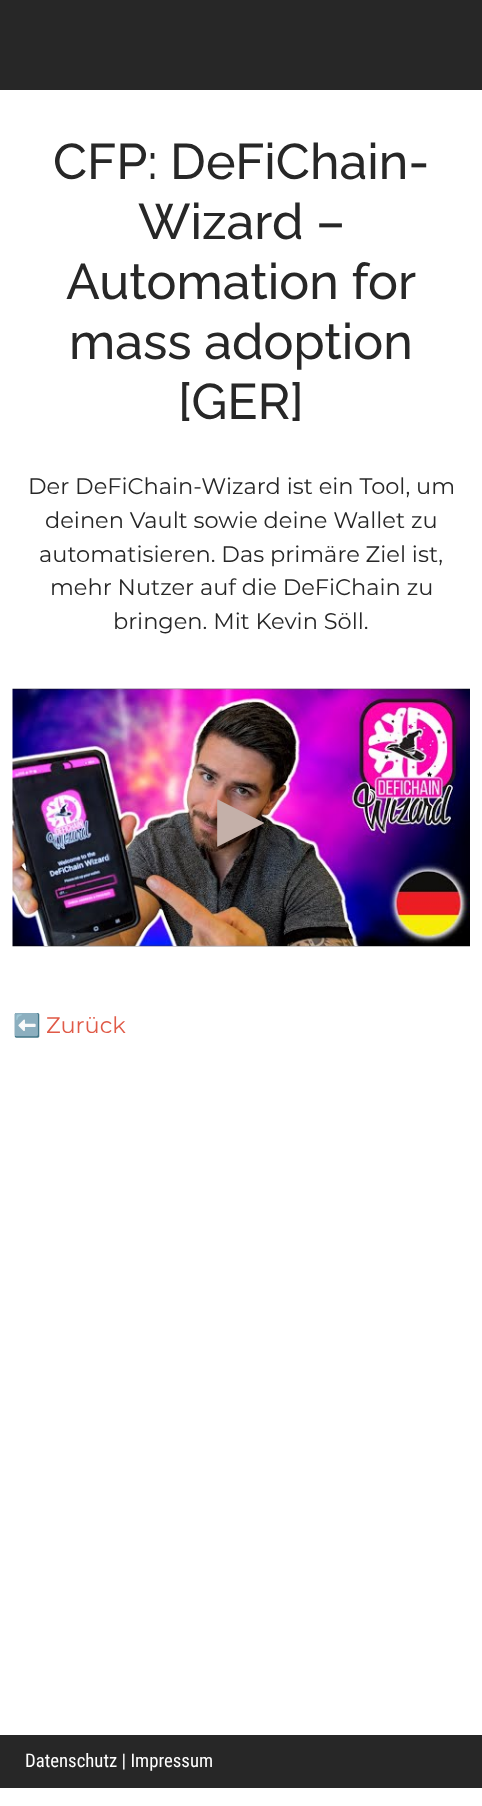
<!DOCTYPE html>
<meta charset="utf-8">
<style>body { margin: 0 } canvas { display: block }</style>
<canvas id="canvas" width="482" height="1806"></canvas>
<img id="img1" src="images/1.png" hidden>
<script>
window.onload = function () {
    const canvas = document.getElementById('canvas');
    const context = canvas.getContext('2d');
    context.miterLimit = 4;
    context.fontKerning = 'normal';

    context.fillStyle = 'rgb(255, 255, 255)';
    context.fillRect(0, 0, 482, 1806);
    context.fillStyle = 'rgb(39, 39, 39)';
    context.fillRect(0, 0, 482, 90);
    context.drawImage(document.getElementById('img1'), 12, 688, 458, 259);
    context.fillRect(0, 1735, 482, 53);
    context.font = '500 50px Raleway';
    context.fillText('CFP: DeFiChain-', 53, 179);
    context.fillText('Wizard –', 138, 239);
    context.fillText('Automation for', 66, 299);
    context.fillText('mass adoption', 69, 359);
    context.fillText('[GER]', 178, 419);
    context.font = '22.5px Montserrat';
    context.fillText('Der DeFiChain-Wizard ist ein Tool, um', 28, 494);
    context.fillText('deinen Vault sowie deine Wallet zu', 45, 528);
    context.fillText('automatisieren. Das primäre Ziel ist,', 39, 562);
    context.fillText('mehr Nutzer auf die DeFiChain zu', 50, 595);
    context.fillText('bringen. Mit Kevin Söll.', 113, 629);
    context.font = '62px DejaVu Sans';
    context.fillStyle = 'rgb(196, 176, 169)';
    context.fillText('▶', 217, 839);
    context.font = '22.5px Noto Color Emoji';
    context.fillStyle = 'rgb(224, 90, 71)';
    context.fillText('⬅️', 13, 1033);
    context.font = '22.5px Montserrat';
    context.fillText('Zurück', 46, 1033);
    context.font = '18.75px Roboto Condensed';
    context.fillStyle = 'rgb(255, 255, 255)';
    context.fillText('Datenschutz | Impressum', 25, 1767);
};
</script>
